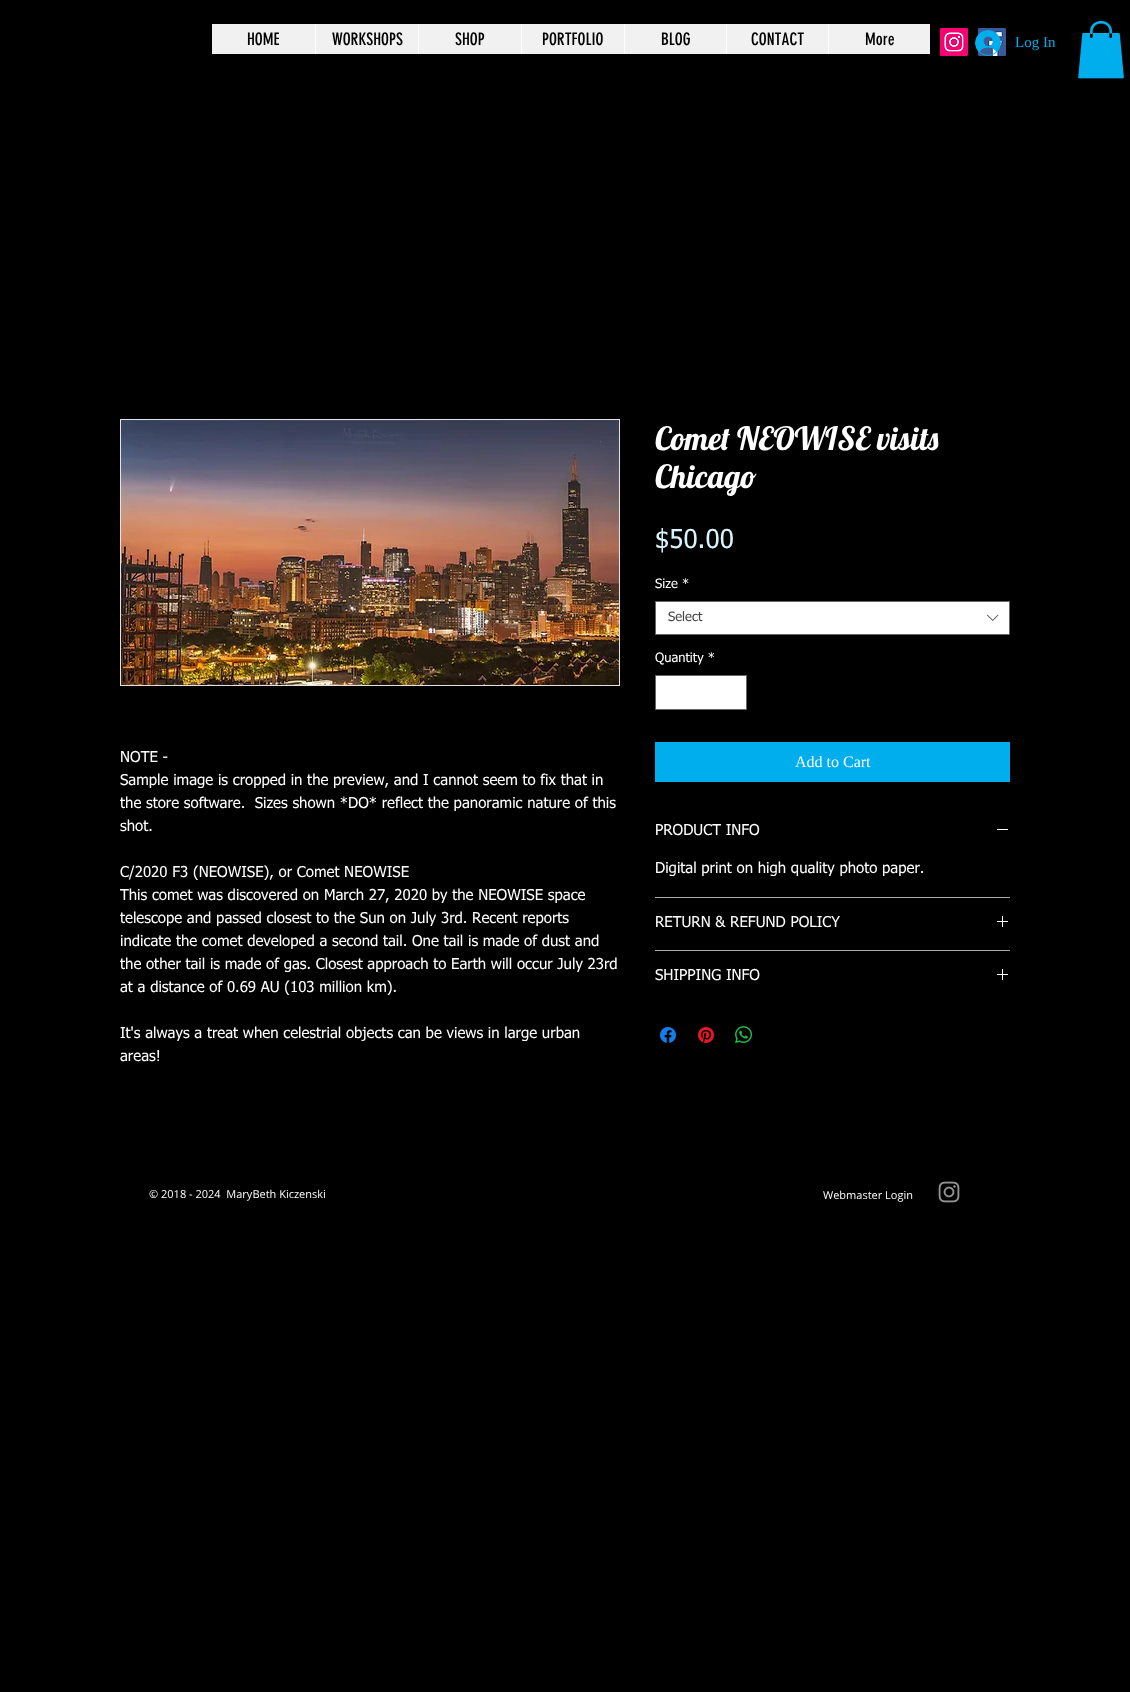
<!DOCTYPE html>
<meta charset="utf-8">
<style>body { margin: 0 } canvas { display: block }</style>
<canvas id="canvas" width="1130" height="1692"></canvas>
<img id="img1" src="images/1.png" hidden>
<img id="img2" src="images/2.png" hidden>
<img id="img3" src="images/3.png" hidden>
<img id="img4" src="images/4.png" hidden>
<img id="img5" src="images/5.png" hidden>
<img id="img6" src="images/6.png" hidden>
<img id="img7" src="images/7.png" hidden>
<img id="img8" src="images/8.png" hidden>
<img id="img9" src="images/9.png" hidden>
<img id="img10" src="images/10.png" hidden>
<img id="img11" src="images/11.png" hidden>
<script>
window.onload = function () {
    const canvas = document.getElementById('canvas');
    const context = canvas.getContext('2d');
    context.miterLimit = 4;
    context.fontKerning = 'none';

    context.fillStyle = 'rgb(0, 0, 0)';
    context.fillRect(0, 0, 1130, 1692);
    context.fillStyle = 'rgb(241, 241, 241)';
    context.fillRect(212, 24, 718, 30);
    context.fillStyle = 'rgb(255, 255, 255)';
    context.fillRect(315, 24, 1, 30);
    context.fillRect(418, 24, 1, 30);
    context.fillRect(521, 24, 1, 30);
    context.fillRect(624, 24, 1, 30);
    context.fillRect(726, 24, 1, 30);
    context.fillRect(828, 24, 1, 30);
    context.drawImage(document.getElementById('img1'), 940, 28, 28, 28);
    context.drawImage(document.getElementById('img2'), 978, 28, 28, 28);
    context.drawImage(document.getElementById('img3'), 975, 30, 26, 26);
    context.drawImage(document.getElementById('img4'), 1078, 21, 46, 58);
    context.strokeStyle = 'rgb(227, 227, 227)';
    context.strokeRect(120.5, 419.5, 499, 266);
    context.drawImage(document.getElementById('img5'), 121, 420, 498, 265);
    context.beginPath();
    context.rect(655.5, 601.5, 354, 33);
    context.fill();
    context.strokeStyle = 'rgb(102, 102, 102)';
    context.stroke();
    context.drawImage(document.getElementById('img6'), 987, 614, 12, 7);
    context.beginPath();
    context.rect(655.5, 675.5, 91, 34);
    context.fill();
    context.stroke();
    context.fillStyle = 'rgb(0, 173, 237)';
    context.fillRect(655, 742, 355, 40);
    context.fillStyle = 'rgb(173, 173, 173)';
    context.fillRect(655, 897, 355, 1);
    context.fillStyle = 'rgb(255, 255, 255)';
    context.fillRect(997, 829, 11, 1);
    context.fillStyle = 'rgb(173, 173, 173)';
    context.fillRect(655, 950, 355, 1);
    context.drawImage(document.getElementById('img7'), 997, 916, 11, 11);
    context.drawImage(document.getElementById('img7'), 997, 969, 11, 11);
    context.drawImage(document.getElementById('img8'), 660, 1027, 16, 16);
    context.drawImage(document.getElementById('img9'), 698, 1027, 16, 16);
    context.drawImage(document.getElementById('img10'), 735, 1026, 17, 17);
    context.drawImage(document.getElementById('img11'), 938, 1181, 22, 22);
    context.font = '17px "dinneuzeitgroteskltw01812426"';
    context.fillStyle = 'rgb(0, 0, 0)';
    context.fillText('HOME', 247, 45);
    context.fillText('WORKSHOPS', 332, 45);
    context.fillText('SHOP', 455, 45);
    context.fillText('PORTFOLIO', 542, 45);
    context.fillText('BLOG', 661, 45);
    context.fillText('CONTACT', 751, 45);
    context.fillText('More', 865, 45);
    context.font = '15px Liberation Serif';
    context.fillStyle = 'rgb(0, 173, 237)';
    context.fillText('Log In', 1015, 47);
    context.font = '15px tahoma';
    context.fillStyle = 'rgb(255, 255, 255)';
    context.fillText('NOTE -', 120, 762);
    context.fillText('Sample image is cropped in the preview, and I cannot seem to fix that in', 120, 785);
    context.fillText('the store software.  Sizes shown *DO* reflect the panoramic nature of this', 120, 808);
    context.fillText('shot.', 120, 831);
    context.fillText('C/2020 F3 (NEOWISE), or Comet NEOWISE', 120, 877);
    context.fillText('This comet was discovered on March 27, 2020 by the NEOWISE space', 120, 900);
    context.fillText('telescope and passed closest to the Sun on July 3rd. Recent reports', 120, 923);
    context.fillText('indicate the comet developed a second tail. One tail is made of dust and', 120, 946);
    context.fillText('the other tail is made of gas. Closest approach to Earth will occur July 23rd', 120, 969);
    context.fillText('at a distance of 0.69 AU (103 million km).', 120, 992);
    context.fillText('It\'s always a treat when celestrial objects can be views in large urban', 120, 1038);
    context.fillText('areas!', 120, 1061);
    context.font = '32px Lobster';
    context.fillText('Comet NEOWISE visits', 655, 450);
    context.fillText('Chicago', 655, 488);
    context.font = '26px tahoma';
    context.fillStyle = 'rgb(216, 243, 253)';
    context.fillText('$50.00', 655, 548);
    context.font = '13px tahoma';
    context.fillStyle = 'rgb(255, 255, 255)';
    context.fillText('Size *', 655, 588);
    context.fillStyle = 'rgb(68, 68, 68)';
    context.fillText('Select', 668, 621);
    context.fillStyle = 'rgb(255, 255, 255)';
    context.fillText('Quantity *', 655, 662);
    context.font = '16px Liberation Serif';
    context.fillText('Add to Cart', 795, 767);
    context.font = '15px tahoma';
    context.fillText('PRODUCT INFO', 655, 835);
    context.fillText('Digital print on high quality photo paper.', 655, 873);
    context.fillText('RETURN & REFUND POLICY', 655, 927);
    context.fillText('SHIPPING INFO', 655, 980);
    context.font = '11px Open Sans';
    context.fillText('© 2018 - 2024  MaryBeth Kiczenski', 149, 1198);
    context.fillText('Webmaster Login', 823, 1199);
};
</script>
